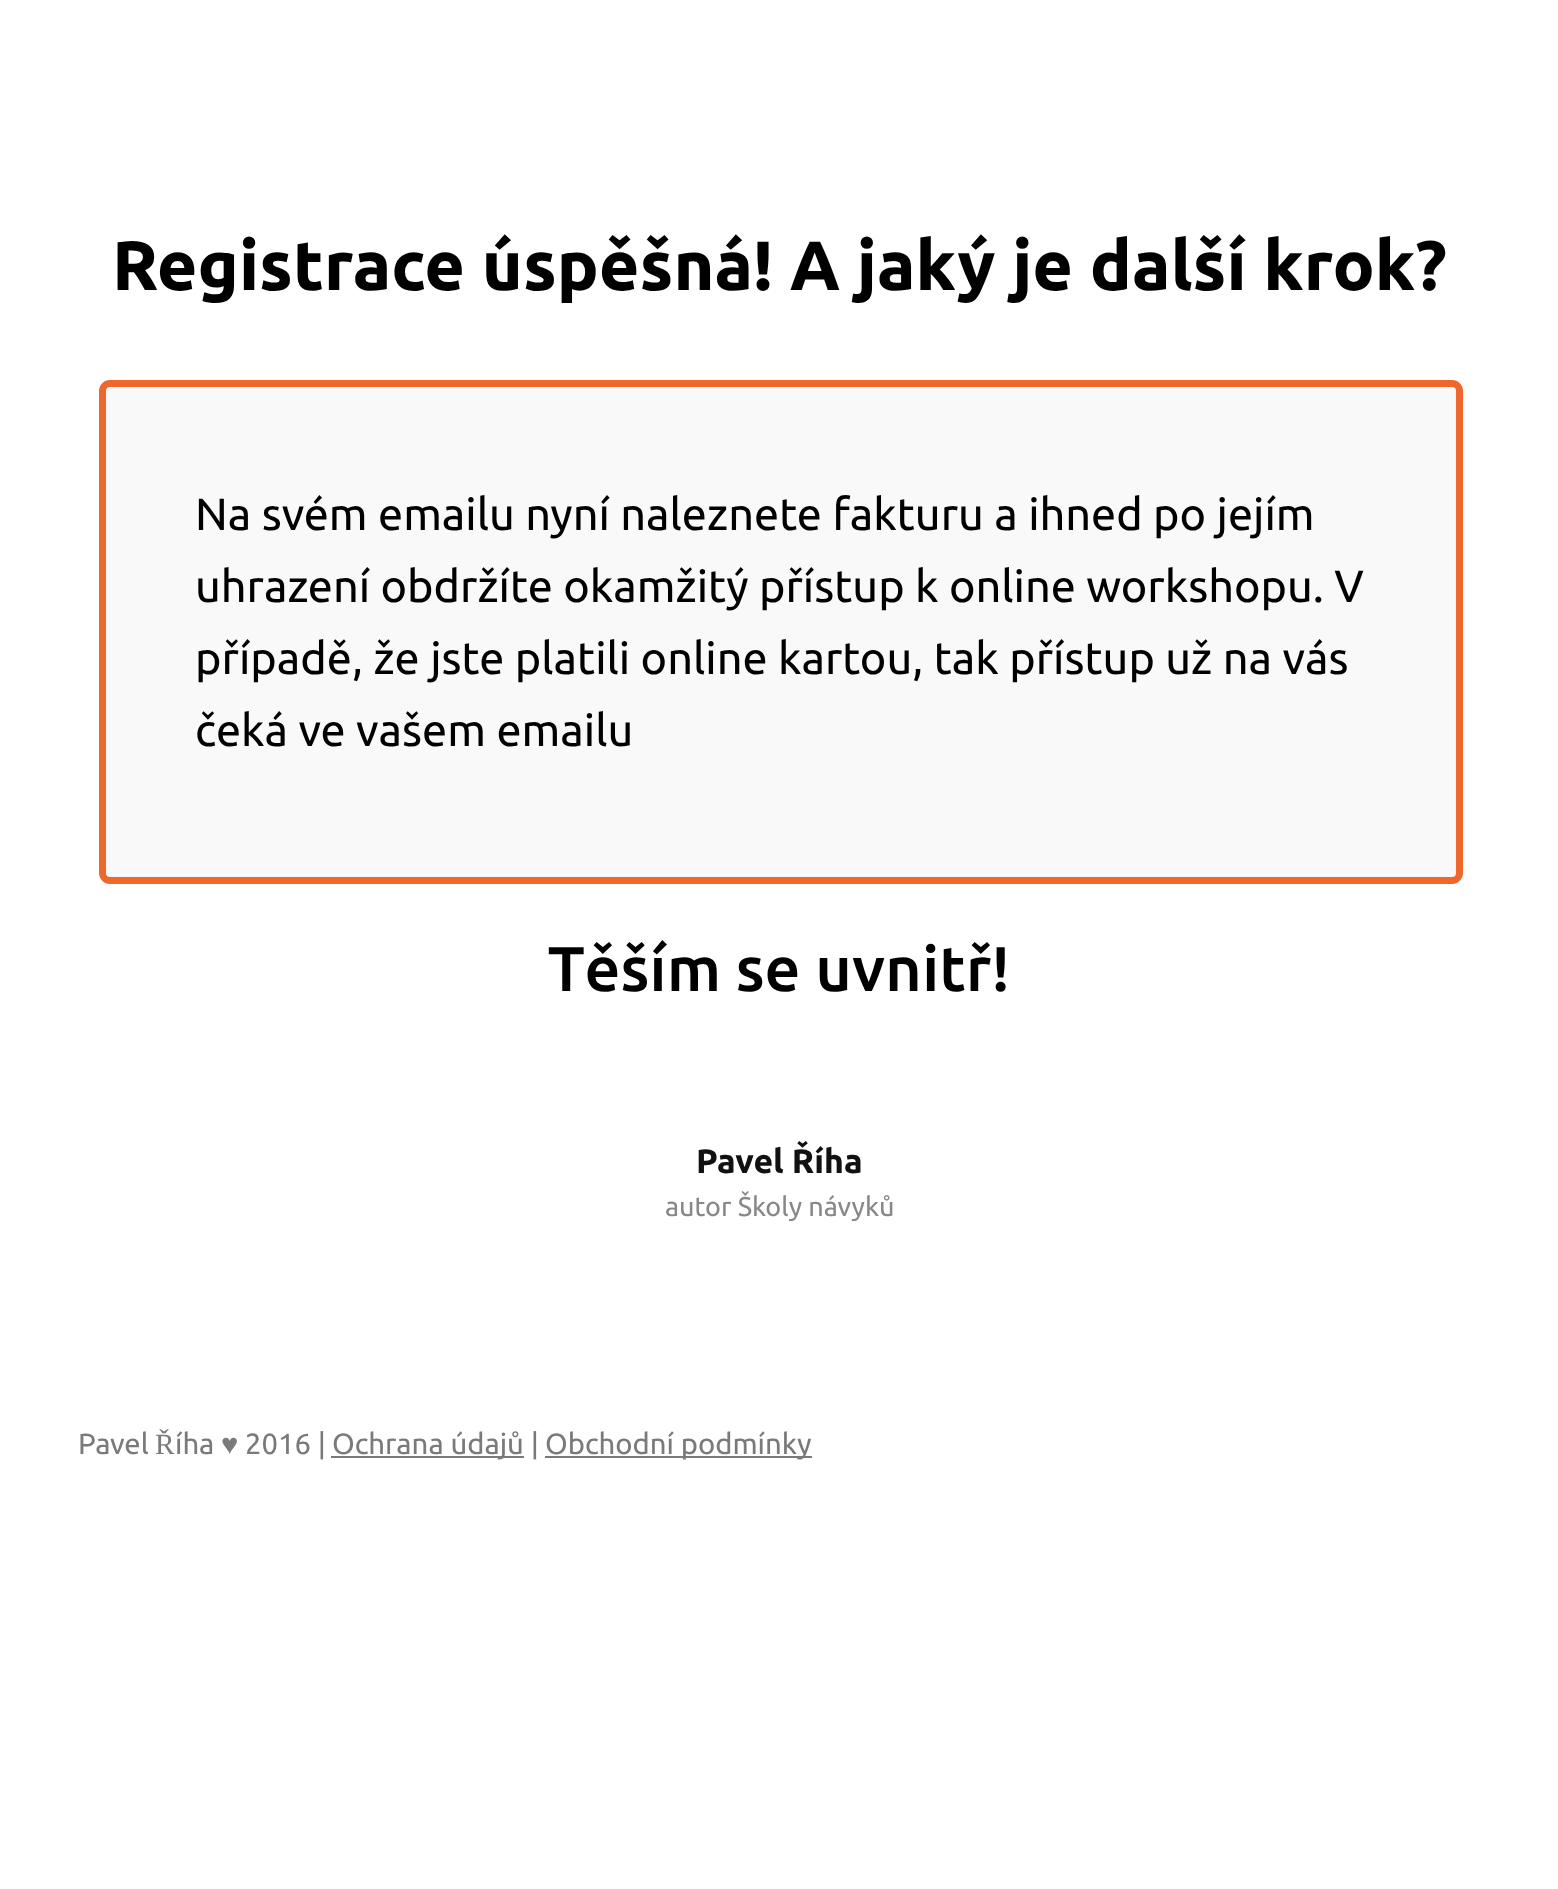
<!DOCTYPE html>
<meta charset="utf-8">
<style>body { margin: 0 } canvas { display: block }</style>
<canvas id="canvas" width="1558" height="1889"></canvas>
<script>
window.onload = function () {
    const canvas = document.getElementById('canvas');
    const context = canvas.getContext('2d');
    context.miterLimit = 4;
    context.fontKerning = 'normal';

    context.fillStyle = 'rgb(255, 255, 255)';
    context.fillRect(0, 0, 1558, 1889);
    context.fillStyle = 'rgb(249, 249, 249)';
    context.beginPath();
    context.roundRect(102.5, 383.5, 1357, 497, 7.5);
    context.fill();
    context.strokeStyle = 'rgb(240, 103, 45)';
    context.lineWidth = 7;
    context.stroke();
    context.fillStyle = 'rgb(122, 122, 122)';
    context.fillRect(331, 1456, 193, 2);
    context.fillRect(545, 1456, 267, 2);
    context.font = 'bold 69.75px Ubuntu';
    context.fillStyle = 'rgb(0, 0, 0)';
    context.fillText('Registrace úspěšná! A jaký je další krok?', 112, 290);
    context.font = '45px Ubuntu';
    context.fillText('Na svém emailu nyní naleznete fakturu a ihned po jejím', 195, 530);
    context.fillText('uhrazení obdržíte okamžitý přístup k online workshopu. V', 195, 602);
    context.fillText('případě, že jste platili online kartou, tak přístup už na vás', 195, 674);
    context.fillText('čeká ve vašem emailu', 195, 746);
    context.font = '500 63px Ubuntu';
    context.fillText('Těším se uvnitř!', 548, 991);
    context.font = 'bold 33.75px Ubuntu';
    context.fillStyle = 'rgb(17, 17, 17)';
    context.fillText('Pavel Říha', 696, 1173);
    context.font = '27px Ubuntu';
    context.fillStyle = 'rgb(136, 136, 136)';
    context.fillText('autor Školy návyků', 665, 1216);
    context.font = '29.25px Ubuntu';
    context.fillStyle = 'rgb(122, 122, 122)';
    context.fillText('Pavel', 78, 1454);
    context.font = '29.25px Liberation Serif';
    context.fillText('Ř', 155, 1454);
    context.font = '29.25px Ubuntu';
    context.fillText('íha', 175, 1454);
    context.font = '29.25px Liberation Serif';
    context.fillText('♥︎', 221, 1454);
    context.font = '29.25px Ubuntu';
    context.fillText('2016 |', 245, 1454);
    context.fillText('Ochrana údajů |', 332, 1454);
    context.fillText('Obchodní podmínky', 545, 1454);
};
</script>
